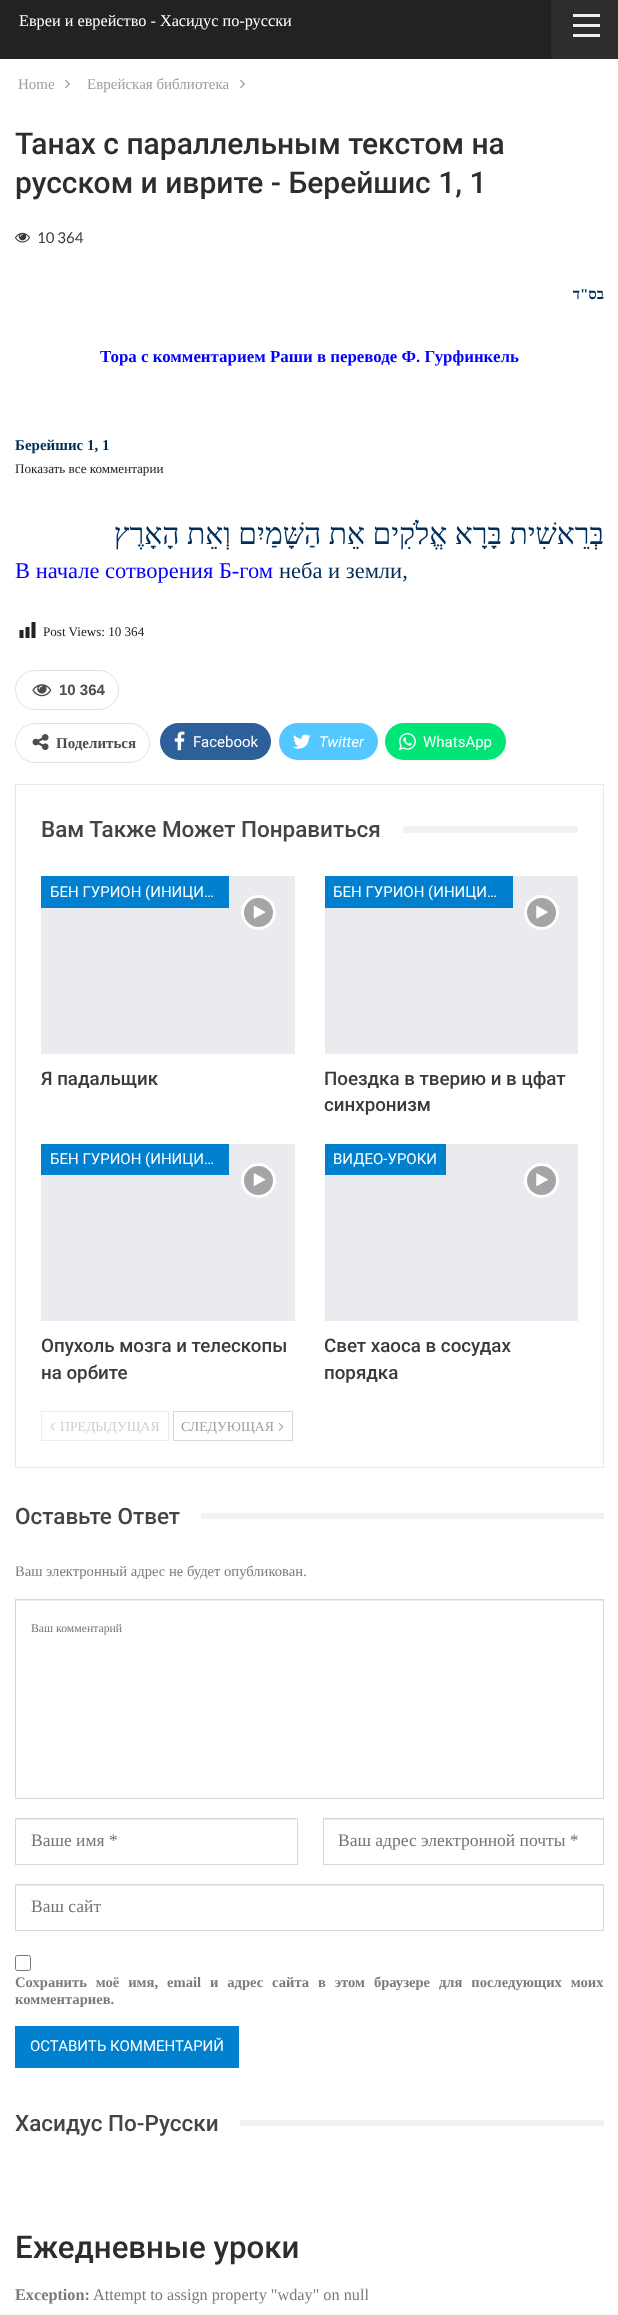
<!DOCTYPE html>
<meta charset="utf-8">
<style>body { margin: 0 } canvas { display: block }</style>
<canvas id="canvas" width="618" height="2315"></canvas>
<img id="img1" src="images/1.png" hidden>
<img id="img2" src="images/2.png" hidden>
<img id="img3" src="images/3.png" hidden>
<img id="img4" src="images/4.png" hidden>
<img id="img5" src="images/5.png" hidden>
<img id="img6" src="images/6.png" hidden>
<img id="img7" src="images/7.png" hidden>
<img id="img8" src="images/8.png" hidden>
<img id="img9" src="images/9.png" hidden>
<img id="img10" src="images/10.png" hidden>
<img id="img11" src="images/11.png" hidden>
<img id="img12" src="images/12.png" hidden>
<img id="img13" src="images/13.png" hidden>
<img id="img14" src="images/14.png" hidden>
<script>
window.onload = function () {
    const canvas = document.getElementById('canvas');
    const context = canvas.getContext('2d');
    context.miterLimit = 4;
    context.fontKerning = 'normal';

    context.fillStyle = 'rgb(255, 255, 255)';
    context.fillRect(0, 0, 618, 2315);
    context.fillStyle = 'rgb(34, 34, 34)';
    context.fillRect(0, 0, 551, 59);
    context.fillStyle = 'rgb(45, 45, 45)';
    context.fillRect(552, 0, 66, 59);
    context.fillStyle = 'rgb(42, 42, 42)';
    context.fillRect(551, 0, 1, 59);
    context.fillStyle = 'rgb(236, 240, 241)';
    context.fillRect(573, 24, 27, 3);
    context.fillRect(573, 14, 27, 3);
    context.fillRect(573, 34, 27, 3);
    context.drawImage(document.getElementById('img1'), 65, 79, 5, 9);
    context.drawImage(document.getElementById('img1'), 240, 79, 5, 9);
    context.drawImage(document.getElementById('img2'), 15, 232, 15, 11);
    context.drawImage(document.getElementById('img3'), 19, 622, 17, 16);
    context.beginPath();
    context.roundRect(15.5, 670.5, 103, 39, 19.5);
    context.strokeStyle = 'rgb(226, 226, 226)';
    context.stroke();
    context.drawImage(document.getElementById('img4'), 32, 684, 20, 13);
    context.beginPath();
    context.roundRect(15.5, 723.5, 134, 39, 19.5);
    context.stroke();
    context.drawImage(document.getElementById('img5'), 32, 734, 17, 17);
    context.fillStyle = 'rgb(45, 95, 154)';
    context.beginPath();
    context.roundRect(160, 723, 111, 37, 18.5);
    context.fill();
    context.drawImage(document.getElementById('img6'), 174, 731, 11, 20);
    context.fillStyle = 'rgb(83, 199, 255)';
    context.beginPath();
    context.roundRect(279, 723, 99, 37, 18.5);
    context.fill();
    context.drawImage(document.getElementById('img7'), 293, 734, 18, 15);
    context.fillStyle = 'rgb(0, 230, 118)';
    context.beginPath();
    context.roundRect(385, 723, 121, 37, 18.5);
    context.fill();
    context.drawImage(document.getElementById('img8'), 398, 733, 18, 18);
    context.strokeStyle = 'rgb(232, 232, 232)';
    context.strokeRect(15.5, 784.5, 588, 683);
    context.fillStyle = 'rgb(242, 242, 242)';
    context.fillRect(403, 826, 175, 7);
    context.fillStyle = 'rgb(233, 235, 238)';
    context.fillRect(41, 876, 254, 178);
    context.fillStyle = 'rgb(0, 128, 206)';
    context.fillRect(41, 876, 188, 32);
    context.fillStyle = 'rgb(163, 165, 167)';
    context.beginPath();
    context.arc(258.5, 912.5, 16, 0, 2 * Math.PI);
    context.fill();
    context.strokeStyle = 'rgb(255, 255, 255)';
    context.lineWidth = 3;
    context.stroke();
    context.drawImage(document.getElementById('img9'), 253, 905, 13, 14);
    context.fillStyle = 'rgb(233, 235, 238)';
    context.fillRect(325, 876, 253, 178);
    context.fillStyle = 'rgb(0, 128, 206)';
    context.fillRect(325, 876, 188, 32);
    context.fillStyle = 'rgb(163, 165, 167)';
    context.beginPath();
    context.arc(541.5, 912.5, 16, 0, 2 * Math.PI);
    context.fill();
    context.stroke();
    context.drawImage(document.getElementById('img10'), 536, 905, 12, 14);
    context.fillStyle = 'rgb(233, 235, 238)';
    context.fillRect(41, 1144, 254, 177);
    context.fillStyle = 'rgb(0, 128, 206)';
    context.fillRect(41, 1144, 188, 31);
    context.fillStyle = 'rgb(163, 165, 167)';
    context.beginPath();
    context.arc(258.5, 1180.5, 16, 0, 2 * Math.PI);
    context.fill();
    context.stroke();
    context.drawImage(document.getElementById('img11'), 253, 1173, 13, 13);
    context.fillStyle = 'rgb(233, 235, 238)';
    context.fillRect(325, 1144, 253, 177);
    context.fillStyle = 'rgb(0, 128, 206)';
    context.fillRect(325, 1144, 121, 31);
    context.fillStyle = 'rgb(163, 165, 167)';
    context.beginPath();
    context.arc(541.5, 1180.5, 16, 0, 2 * Math.PI);
    context.fill();
    context.stroke();
    context.drawImage(document.getElementById('img12'), 536, 1173, 12, 13);
    context.strokeStyle = 'rgb(236, 236, 236)';
    context.lineWidth = 1;
    context.strokeRect(41.5, 1411.5, 127, 29);
    context.drawImage(document.getElementById('img13'), 50, 1423, 5, 8);
    context.strokeStyle = 'rgb(216, 216, 216)';
    context.strokeRect(173.5, 1411.5, 119, 29);
    context.drawImage(document.getElementById('img14'), 278, 1423, 6, 8);
    context.fillStyle = 'rgb(242, 242, 242)';
    context.fillRect(201, 1513, 403, 6);
    context.fillStyle = 'rgb(236, 236, 236)';
    context.fillRect(16, 1600, 587, 1);
    context.strokeRect(15.5, 1599.5, 588, 199);
    context.fillRect(16, 1819, 280, 1);
    context.strokeRect(15.5, 1818.5, 282, 46);
    context.fillRect(324, 1819, 279, 1);
    context.strokeRect(323.5, 1818.5, 280, 46);
    context.fillRect(16, 1885, 587, 1);
    context.strokeRect(15.5, 1884.5, 588, 46);
    context.beginPath();
    context.roundRect(15.5, 1955.5, 15, 15, 2);
    context.strokeStyle = 'rgb(118, 118, 118)';
    context.stroke();
    context.fillStyle = 'rgb(0, 128, 206)';
    context.fillRect(15, 2026, 224, 42);
    context.fillStyle = 'rgb(242, 242, 242)';
    context.fillRect(240, 2120, 364, 6);
    context.font = '16.25px Liberation Serif';
    context.fillStyle = 'rgb(255, 255, 255)';
    context.fillText('Евреи и еврейство - Хасидус по-русски', 19, 26);
    context.font = '15px Liberation Serif';
    context.fillStyle = 'rgb(158, 158, 158)';
    context.fillText('Home', 18, 89);
    context.fillText('Еврейская библиотека', 87, 89);
    context.font = '500 30px Roboto';
    context.fillStyle = 'rgb(45, 45, 45)';
    context.fillText('Танах с параллельным текстом на', 15, 154);
    context.fillText('русском и иврите - Берейшис 1, 1', 15, 193);
    context.font = '15px Lato';
    context.fillStyle = 'rgb(58, 58, 58)';
    context.fillText('10 364', 37, 243);
    context.direction = 'rtl';
    context.font = 'bold 15px Liberation Serif';
    context.fillStyle = 'rgb(0, 46, 91)';
    context.fillText('בס"ד', 604, 299);
    context.direction = 'ltr';
    context.font = 'bold 16.9px Liberation Serif';
    context.fillStyle = 'rgb(0, 0, 255)';
    context.fillText('Тора с комментарием Раши в переводе Ф. Гурфинкель', 100, 362);
    context.font = 'bold 15px Liberation Serif';
    context.fillStyle = 'rgb(0, 46, 91)';
    context.fillText('Берейшис 1, 1', 15, 450);
    context.font = '13.1px Liberation Serif';
    context.fillStyle = 'rgb(34, 34, 34)';
    context.fillText('Показать все комментарии', 15, 473);
    context.direction = 'rtl';
    context.font = '30px Liberation Serif';
    context.fillStyle = 'rgb(0, 46, 91)';
    context.fillText('בְּרֵאשִׁית בָּרָא אֱלֹקִים אֵת הַשָּׁמַיִם וְאֵת הָאָרֶץ', 604, 544);
    context.direction = 'ltr';
    context.font = '22.5px Liberation Serif';
    context.fillStyle = 'rgb(0, 0, 255)';
    context.fillText('В начале сотворения Б-гом', 15, 578);
    context.fillStyle = 'rgb(0, 46, 91)';
    context.fillText('неба и земли,', 279, 578);
    context.font = '13.1px Liberation Serif';
    context.fillStyle = 'rgb(34, 34, 34)';
    context.fillText('Post Views: 10 364', 43, 636);
    context.font = 'bold 15px Liberation Sans';
    context.fillStyle = 'rgb(77, 77, 77)';
    context.fillText('10 364', 59, 695);
    context.font = 'bold 15px Liberation Serif';
    context.fillText('Поделиться', 56, 748);
    context.font = '15px Roboto';
    context.fillStyle = 'rgb(255, 255, 255)';
    context.fillText('Facebook', 193, 747);
    context.font = 'italic 15px Roboto';
    context.fillText('Twitter', 319, 747);
    context.font = '15px Roboto';
    context.fillText('WhatsApp', 423, 747);
    context.font = '500 22.5px Roboto';
    context.fillStyle = 'rgb(68, 68, 68)';
    context.fillText('Вам Также Может Понравиться', 41, 837);
    context.font = '15px Roboto';
    context.fillStyle = 'rgb(255, 255, 255)';
    context.fillText('БЕН ГУРИОН (ИНИЦИ…', 50, 897);
    context.font = '500 18.75px Roboto';
    context.fillStyle = 'rgb(58, 58, 58)';
    context.fillText('Я падальщик', 41, 1085);
    context.font = '15px Roboto';
    context.fillStyle = 'rgb(255, 255, 255)';
    context.fillText('БЕН ГУРИОН (ИНИЦИ…', 333, 897);
    context.font = '500 18.75px Roboto';
    context.fillStyle = 'rgb(58, 58, 58)';
    context.fillText('Поездка в тверию и в цфат', 324, 1085);
    context.fillText('синхронизм', 324, 1111);
    context.font = '15px Roboto';
    context.fillStyle = 'rgb(255, 255, 255)';
    context.fillText('БЕН ГУРИОН (ИНИЦИ…', 50, 1164);
    context.font = '500 18.75px Roboto';
    context.fillStyle = 'rgb(58, 58, 58)';
    context.fillText('Опухоль мозга и телескопы', 41, 1352);
    context.fillText('на орбите', 41, 1379);
    context.font = '15px Roboto';
    context.fillStyle = 'rgb(255, 255, 255)';
    context.fillText('ВИДЕО-УРОКИ', 333, 1164);
    context.font = '500 18.75px Roboto';
    context.fillStyle = 'rgb(58, 58, 58)';
    context.fillText('Свет хаоса в сосудах', 324, 1352);
    context.fillText('порядка', 324, 1379);
    context.font = '13.75px Liberation Serif';
    context.fillStyle = 'rgb(207, 207, 207)';
    context.fillText('ПРЕДЫДУЩАЯ', 60, 1431);
    context.fillStyle = 'rgb(158, 158, 158)';
    context.fillText('СЛЕДУЮЩАЯ', 181, 1431);
    context.font = '500 22.5px Roboto';
    context.fillStyle = 'rgb(68, 68, 68)';
    context.fillText('Оставьте Ответ', 15, 1524);
    context.font = '14.6px Liberation Serif';
    context.fillStyle = 'rgb(123, 123, 123)';
    context.fillText('Ваш электронный адрес не будет опубликован.', 15, 1576);
    context.font = '11.75px Liberation Serif';
    context.fillStyle = 'rgb(117, 117, 117)';
    context.fillText('Ваш комментарий', 31, 1632);
    context.font = '17.5px Liberation Serif';
    context.fillText('Ваше имя *', 31, 1846);
    context.fillText('Ваш адрес электронной почты *', 338, 1846);
    context.fillText('Ваш сайт', 31, 1912);
    context.wordSpacing = '5.25px';
    context.font = 'bold 14.6px Liberation Serif';
    context.fillStyle = 'rgb(123, 123, 123)';
    context.fillText('Сохранить моё имя, email и адрес сайта в этом браузере для последующих моих', 15, 1987);
    context.wordSpacing = '0px';
    context.fillText('комментариев.', 15, 2004);
    context.font = '15px Roboto';
    context.fillStyle = 'rgb(255, 255, 255)';
    context.fillText('ОСТАВИТЬ КОММЕНТАРИЙ', 30, 2051);
    context.font = '500 22.5px Roboto';
    context.fillStyle = 'rgb(68, 68, 68)';
    context.fillText('Хасидус По-Русски', 15, 2131);
    context.font = '500 31.25px Roboto';
    context.fillStyle = 'rgb(45, 45, 45)';
    context.fillText('Ежедневные уроки', 15, 2258);
    context.font = 'bold 16.25px Liberation Serif';
    context.fillStyle = 'rgb(123, 123, 123)';
    context.fillText('Exception:', 15, 2300);
    context.font = '16.25px Liberation Serif';
    context.fillText('Attempt to assign property "wday" on null', 93, 2300);
};
</script>
